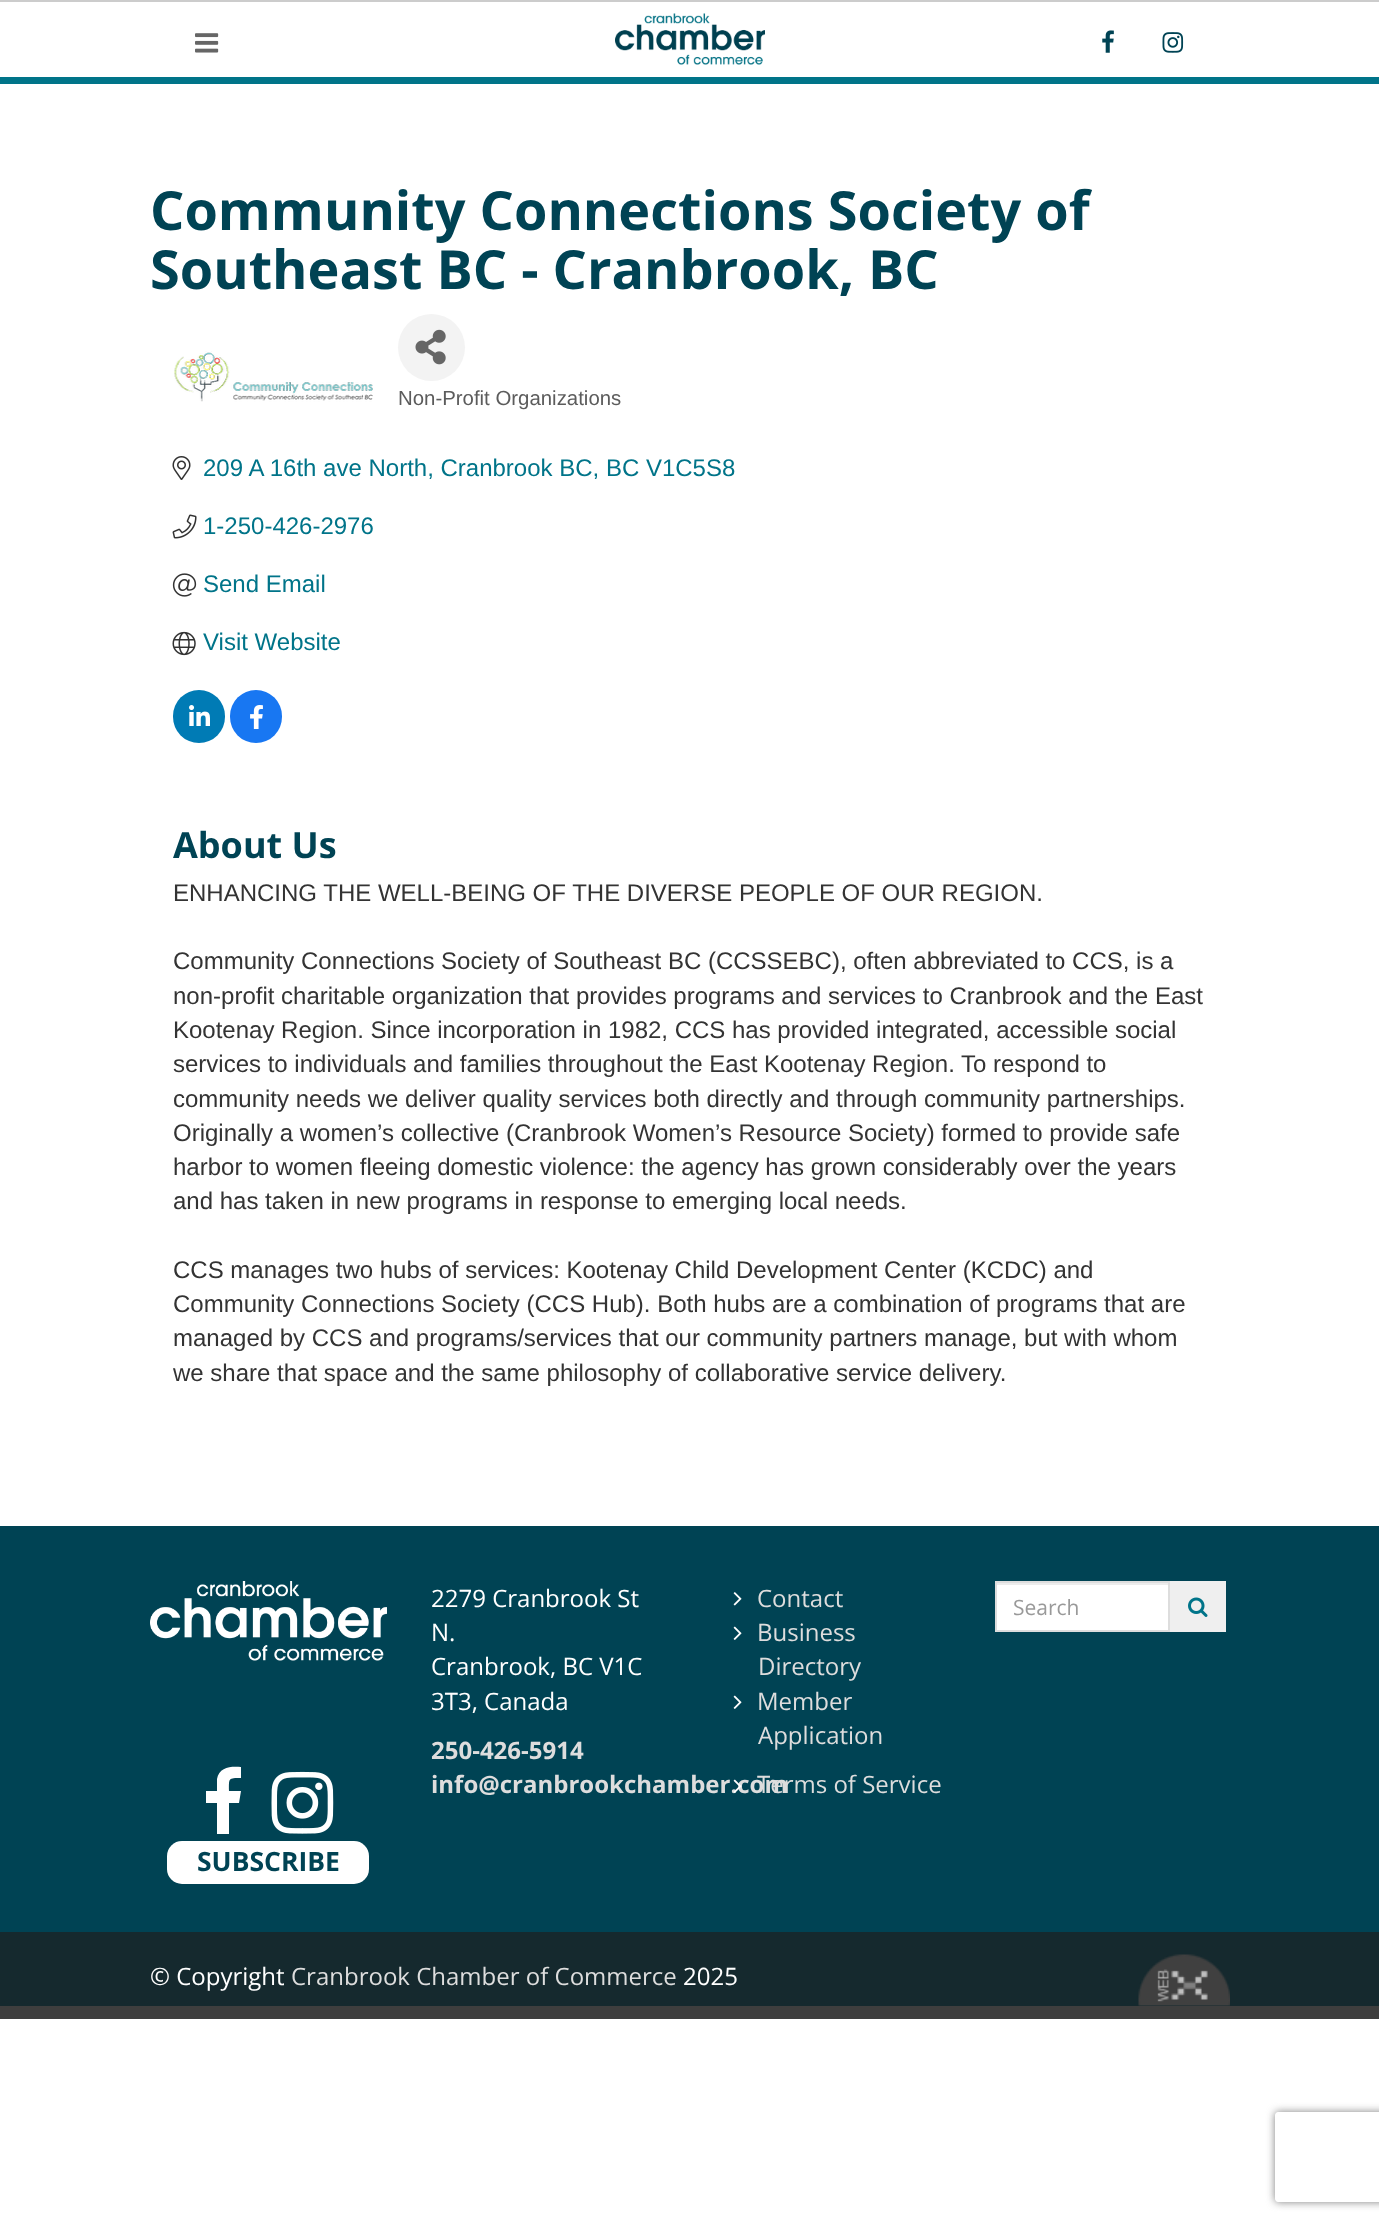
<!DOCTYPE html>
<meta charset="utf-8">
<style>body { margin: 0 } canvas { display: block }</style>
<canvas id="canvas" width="1379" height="2222"></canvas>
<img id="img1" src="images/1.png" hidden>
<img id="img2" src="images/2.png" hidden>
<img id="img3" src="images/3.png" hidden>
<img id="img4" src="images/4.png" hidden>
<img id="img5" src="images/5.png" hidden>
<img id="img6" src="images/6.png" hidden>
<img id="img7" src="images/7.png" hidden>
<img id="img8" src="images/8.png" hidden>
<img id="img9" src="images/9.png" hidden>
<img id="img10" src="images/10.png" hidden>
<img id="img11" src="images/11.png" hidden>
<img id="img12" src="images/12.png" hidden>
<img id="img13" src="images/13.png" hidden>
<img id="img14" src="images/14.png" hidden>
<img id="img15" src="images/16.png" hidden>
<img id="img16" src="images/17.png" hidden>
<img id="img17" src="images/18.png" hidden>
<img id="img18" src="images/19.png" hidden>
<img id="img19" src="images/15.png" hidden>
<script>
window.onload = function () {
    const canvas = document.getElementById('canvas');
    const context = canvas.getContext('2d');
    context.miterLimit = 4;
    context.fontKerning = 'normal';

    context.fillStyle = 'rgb(255, 255, 255)';
    context.fillRect(0, 0, 1379, 2222);
    context.fillStyle = 'rgb(204, 204, 204)';
    context.fillRect(0, 0, 1379, 2);
    context.fillStyle = 'rgb(0, 116, 137)';
    context.fillRect(0, 77, 1379, 7);
    context.drawImage(document.getElementById('img1'), 195, 33, 24, 20);
    context.drawImage(document.getElementById('img2'), 615, 13, 150, 52);
    context.drawImage(document.getElementById('img3'), 1102, 30, 12, 23);
    context.drawImage(document.getElementById('img4'), 1162, 32, 22, 21);
    context.drawImage(document.getElementById('img5'), 174, 351, 199, 51);
    context.fillStyle = 'rgb(243, 243, 243)';
    context.beginPath();
    context.arc(431.5, 347.5, 33.5, 0, 2 * Math.PI);
    context.fill();
    context.drawImage(document.getElementById('img6'), 415, 329, 31, 36);
    context.drawImage(document.getElementById('img7'), 172, 456, 19, 24);
    context.drawImage(document.getElementById('img8'), 172, 514, 25, 25);
    context.drawImage(document.getElementById('img9'), 172, 573, 25, 24);
    context.drawImage(document.getElementById('img10'), 172, 631, 24, 25);
    context.fillStyle = 'rgb(0, 123, 181)';
    context.beginPath();
    context.roundRect(173, 690, 52, 53, 26);
    context.fill();
    context.drawImage(document.getElementById('img11'), 189, 705, 21, 21);
    context.fillStyle = 'rgb(24, 119, 242)';
    context.beginPath();
    context.roundRect(230, 690, 52, 53, 26);
    context.fill();
    context.drawImage(document.getElementById('img12'), 250, 705, 13, 24);
    context.fillStyle = 'rgb(0, 67, 84)';
    context.fillRect(0, 1526, 1379, 406);
    context.drawImage(document.getElementById('img13'), 733, 1592, 9, 14);
    context.drawImage(document.getElementById('img14'), 733, 1626, 9, 14);
    context.drawImage(document.getElementById('img14'), 733, 1695, 9, 14);
    context.fillStyle = 'rgb(255, 255, 255)';
    context.fillRect(997, 1585, 171, 45);
    context.fillStyle = 'rgb(236, 236, 236)';
    context.fillRect(996, 1583, 173, 2);
    context.strokeStyle = 'rgb(221, 221, 221)';
    context.lineWidth = 2;
    context.strokeRect(996, 1582, 173, 49);
    context.fillStyle = 'rgb(239, 239, 239)';
    context.fillRect(1170, 1581, 56, 51);
    context.drawImage(document.getElementById('img15'), 1188, 1597, 20, 20);
    context.drawImage(document.getElementById('img16'), 150, 1581, 237, 80);
    context.fillStyle = 'rgb(255, 255, 255)';
    context.beginPath();
    context.moveTo(241, 1767);
    context.lineTo(241, 1778);
    context.bezierCurveTo(228, 1778, 229, 1778, 229, 1791);
    context.lineTo(241, 1791);
    context.lineTo(239, 1803);
    context.lineTo(229, 1803);
    context.lineTo(229, 1834);
    context.lineTo(217, 1834);
    context.lineTo(217, 1803);
    context.lineTo(206, 1803);
    context.lineTo(206, 1791);
    context.lineTo(217, 1791);
    context.lineTo(217, 1779);
    context.bezierCurveTo(219, 1767, 231, 1766, 241, 1767);
    context.closePath();
    context.fill();
    context.drawImage(document.getElementById('img17'), 271, 1771, 63, 63);
    context.beginPath();
    context.roundRect(167, 1841, 202, 43, 15);
    context.fill();
    context.fillStyle = 'rgb(21, 41, 46)';
    context.fillRect(0, 1932, 1379, 74);
    context.drawImage(document.getElementById('img18'), 1138, 1954, 92, 52);
    context.fillStyle = 'rgb(62, 62, 62)';
    context.fillRect(0, 2006, 1379, 13);
    context.save();
    context.beginPath();
    context.moveTo(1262, 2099);
    context.lineTo(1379, 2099);
    context.lineTo(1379, 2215);
    context.lineTo(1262, 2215);
    context.closePath();
    context.moveTo(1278, 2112);
    context.lineTo(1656, 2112);
    context.bezierCurveTo(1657.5, 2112, 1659, 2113.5, 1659, 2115);
    context.lineTo(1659, 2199);
    context.bezierCurveTo(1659, 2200.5, 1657.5, 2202, 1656, 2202);
    context.lineTo(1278, 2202);
    context.bezierCurveTo(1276.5, 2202, 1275, 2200.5, 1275, 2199);
    context.lineTo(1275, 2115);
    context.bezierCurveTo(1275, 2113.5, 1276.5, 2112, 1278, 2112);
    context.closePath();
    context.clip('evenodd');
    context.fillStyle = 'rgb(128, 128, 128)';
    context.filter = 'blur(4px)';
    context.beginPath();
    context.roundRect(1275, 2112, 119, 90, 3);
    context.fill();
    context.filter = 'none';
    context.restore();
    context.font = 'bold 54px Open Sans';
    context.fillStyle = 'rgb(0, 67, 84)';
    context.fillText('Community Connections Society of', 150, 230);
    context.fillText('Southeast BC - Cranbrook, BC', 150, 289);
    context.font = '20.4px Liberation Sans';
    context.fillStyle = 'rgb(92, 92, 92)';
    context.fillText('Non-Profit Organizations', 398, 405);
    context.font = '24px Liberation Sans';
    context.fillStyle = 'rgb(0, 116, 137)';
    context.fillText('209 A 16th ave North, Cranbrook BC, BC V1C5S8', 203, 476);
    context.fillText('1-250-426-2976', 203, 534);
    context.fillText('Send Email', 203, 592);
    context.fillText('Visit Website', 203, 650);
    context.font = 'bold 36px Open Sans';
    context.fillStyle = 'rgb(0, 67, 84)';
    context.fillText('About Us', 173, 858);
    context.font = '24px Liberation Sans';
    context.fillStyle = 'rgb(51, 51, 51)';
    context.fillText('ENHANCING THE WELL-BEING OF THE DIVERSE PEOPLE OF OUR REGION.', 173, 901);
    context.fillText('Community Connections Society of Southeast BC (CCSSEBC), often abbreviated to CCS, is a', 173, 969);
    context.fillText('non-profit charitable organization that provides programs and services to Cranbrook and the East', 173, 1004);
    context.fillText('Kootenay Region. Since incorporation in 1982, CCS has provided integrated, accessible social', 173, 1038);
    context.fillText('services to individuals and families throughout the East Kootenay Region.', 173, 1072);
    context.fillText('To respond to', 961, 1072);
    context.fillText('community needs we deliver quality services both directly and through community partnerships.', 173, 1107);
    context.fillText('Originally a women’s collective (Cranbrook Women’s Resource Society) formed to provide safe', 173, 1141);
    context.fillText('harbor to women fleeing domestic violence: the agency has grown considerably over the years', 173, 1175);
    context.fillText('and has taken in new programs in response to emerging local needs.', 173, 1209);
    context.fillText('CCS manages two hubs of services: Kootenay Child Development Center (KCDC) and', 173, 1278);
    context.fillText('Community Connections Society (CCS Hub). Both hubs are a combination of programs that are', 173, 1312);
    context.fillText('managed by CCS and programs/services that our community partners manage, but with whom', 173, 1346);
    context.fillText('we share that space and the same philosophy of collaborative service delivery.', 173, 1381);
    context.font = '24px Open Sans';
    context.fillStyle = 'rgb(255, 255, 255)';
    context.fillText('2279 Cranbrook St', 431, 1607);
    context.fillText('N.', 431, 1641);
    context.fillText('Cranbrook, BC V1C', 431, 1675);
    context.fillText('3T3, Canada', 431, 1710);
    context.font = 'bold 24px Open Sans';
    context.fillStyle = 'rgb(221, 221, 221)';
    context.fillText('250-426-5914', 431, 1759);
    context.fillText('info@cranbrookchamber.com', 431, 1793);
    context.font = '24px Open Sans';
    context.fillText('Contact', 757, 1607);
    context.fillText('Business', 757, 1641);
    context.fillText('Directory', 758, 1675);
    context.fillText('Member', 757, 1710);
    context.fillText('Application', 758, 1744);
    context.drawImage(document.getElementById('img19'), 733, 1779, 9, 14);
    context.fillText('Terms of Service', 757, 1793);
    context.font = '21px Open Sans';
    context.fillStyle = 'rgb(153, 153, 153)';
    context.fillText('Search', 1013, 1615);
    context.font = 'bold 26.5px Open Sans';
    context.fillStyle = 'rgb(0, 67, 84)';
    context.fillText('SUBSCRIBE', 197, 1871);
    context.font = '24px Open Sans';
    context.fillStyle = 'rgb(255, 255, 255)';
    context.fillText('© Copyright', 150, 1985);
    context.fillStyle = 'rgb(221, 221, 221)';
    context.fillText('Cranbrook Chamber of Commerce', 291, 1985);
    context.fillStyle = 'rgb(255, 255, 255)';
    context.fillText('2025', 683, 1985);
};
</script>
